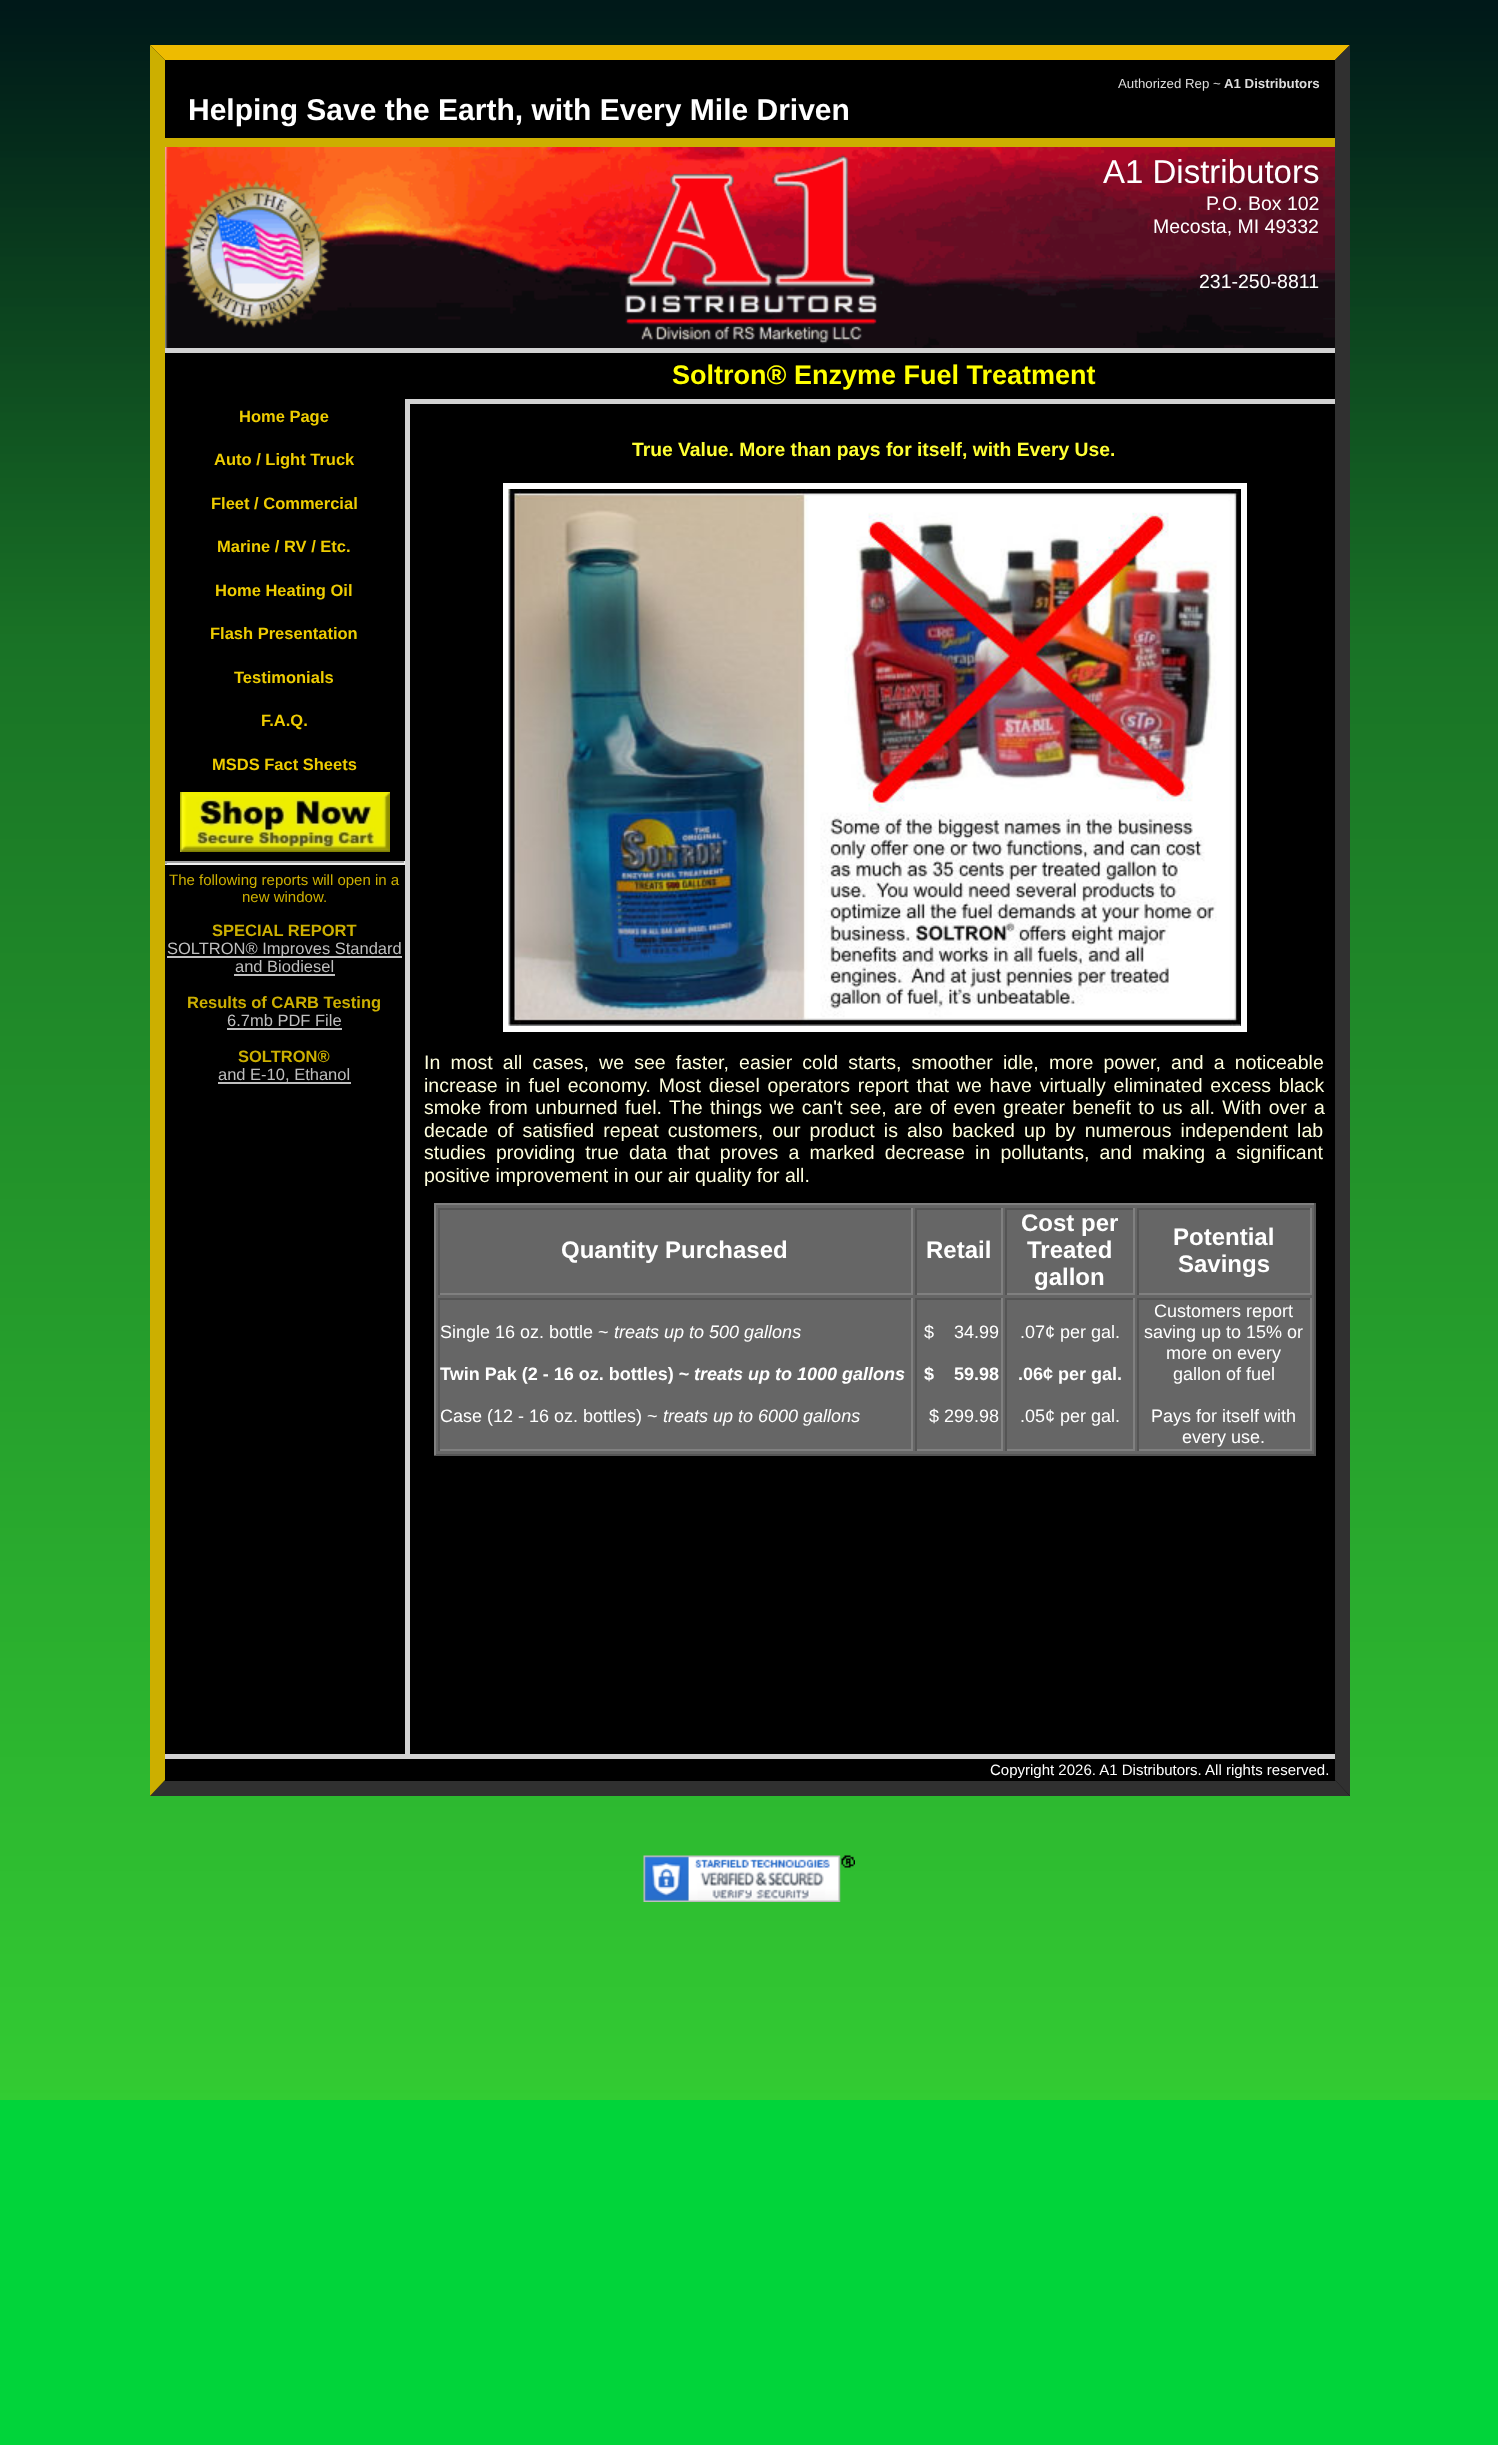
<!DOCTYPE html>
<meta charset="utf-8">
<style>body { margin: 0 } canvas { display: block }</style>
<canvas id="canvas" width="1498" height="2445"></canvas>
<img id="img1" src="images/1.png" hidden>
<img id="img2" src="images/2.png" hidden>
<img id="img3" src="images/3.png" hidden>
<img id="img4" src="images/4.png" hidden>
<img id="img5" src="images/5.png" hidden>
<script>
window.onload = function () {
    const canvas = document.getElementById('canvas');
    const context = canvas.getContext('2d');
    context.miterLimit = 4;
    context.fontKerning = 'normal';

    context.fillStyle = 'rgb(1, 212, 58)';
    context.fillRect(0, 0, 1498, 2445);
    context.drawImage(document.getElementById('img1'), 0, 0, 1498, 2100);
    context.fillStyle = 'rgb(0, 0, 0)';
    context.fillRect(150, 45, 1200, 1751);
    context.fillStyle = 'rgb(238, 187, 0)';
    context.beginPath();
    context.moveTo(150, 45);
    context.lineTo(1350, 45);
    context.lineTo(1335, 60);
    context.lineTo(165, 60);
    context.closePath();
    context.fill();
    context.fillStyle = 'rgb(48, 48, 48)';
    context.beginPath();
    context.moveTo(1350, 45);
    context.lineTo(1350, 1796);
    context.lineTo(1335, 1780);
    context.lineTo(1335, 60);
    context.closePath();
    context.fill();
    context.beginPath();
    context.moveTo(1350, 1796);
    context.lineTo(150, 1796);
    context.lineTo(165, 1780);
    context.lineTo(1335, 1780);
    context.closePath();
    context.fill();
    context.fillStyle = 'rgb(204, 175, 0)';
    context.beginPath();
    context.moveTo(150, 1796);
    context.lineTo(150, 45);
    context.lineTo(165, 60);
    context.lineTo(165, 1780);
    context.closePath();
    context.fill();
    context.fillRect(165, 138, 1170, 9);
    context.drawImage(document.getElementById('img2'), 165, 147, 1170, 201);
    context.fillStyle = 'rgb(210, 210, 210)';
    context.fillRect(165, 348, 1170, 5);
    context.fillRect(405, 399, 930, 5);
    context.drawImage(document.getElementById('img3'), 180, 792, 210, 60);
    context.fillStyle = 'rgb(159, 159, 159)';
    context.fillRect(165, 861, 240, 2);
    context.fillStyle = 'rgb(238, 238, 238)';
    context.fillRect(404, 861, 1, 3);
    context.fillRect(165, 863, 240, 2);
    context.fillStyle = 'rgb(159, 159, 159)';
    context.fillRect(165, 861, 2, 3);
    context.fillStyle = 'rgb(191, 191, 191)';
    context.fillRect(167, 956, 235, 2);
    context.fillRect(234, 974, 101, 2);
    context.fillRect(227, 1028, 115, 2);
    context.fillRect(218, 1082, 133, 2);
    context.fillStyle = 'rgb(210, 210, 210)';
    context.fillRect(405, 404, 5, 1350);
    context.strokeStyle = 'rgb(255, 255, 255)';
    context.lineWidth = 6;
    context.strokeRect(506, 486, 738, 543);
    context.drawImage(document.getElementById('img4'), 508, 489, 733, 537);
    context.fillStyle = 'rgb(102, 102, 102)';
    context.fillRect(436, 1205, 878, 249);
    context.fillStyle = 'rgb(128, 128, 128)';
    context.fillRect(434, 1203, 882, 2);
    context.fillStyle = 'rgb(85, 85, 85)';
    context.fillRect(1314, 1203, 2, 252);
    context.fillRect(434, 1454, 882, 2);
    context.fillStyle = 'rgb(128, 128, 128)';
    context.fillRect(434, 1203, 2, 252);
    context.fillStyle = 'rgb(85, 85, 85)';
    context.fillRect(438, 1208, 474, 2);
    context.fillStyle = 'rgb(128, 128, 128)';
    context.fillRect(911, 1208, 2, 87);
    context.fillRect(438, 1293, 474, 2);
    context.fillStyle = 'rgb(85, 85, 85)';
    context.fillRect(438, 1208, 2, 87);
    context.fillRect(915, 1208, 87, 2);
    context.fillStyle = 'rgb(128, 128, 128)';
    context.fillRect(1001, 1208, 2, 87);
    context.fillRect(915, 1293, 87, 2);
    context.fillStyle = 'rgb(85, 85, 85)';
    context.fillRect(915, 1208, 2, 87);
    context.fillRect(1005, 1208, 129, 2);
    context.fillStyle = 'rgb(128, 128, 128)';
    context.fillRect(1133, 1208, 2, 87);
    context.fillRect(1005, 1293, 129, 2);
    context.fillStyle = 'rgb(85, 85, 85)';
    context.fillRect(1005, 1208, 2, 87);
    context.fillRect(1137, 1208, 174, 2);
    context.fillStyle = 'rgb(128, 128, 128)';
    context.fillRect(1310, 1208, 2, 87);
    context.fillRect(1137, 1293, 174, 2);
    context.fillStyle = 'rgb(85, 85, 85)';
    context.fillRect(1137, 1208, 2, 87);
    context.fillRect(438, 1298, 474, 2);
    context.fillStyle = 'rgb(128, 128, 128)';
    context.fillRect(911, 1298, 2, 153);
    context.fillRect(438, 1449, 474, 2);
    context.fillStyle = 'rgb(85, 85, 85)';
    context.fillRect(438, 1298, 2, 153);
    context.fillRect(915, 1298, 87, 2);
    context.fillStyle = 'rgb(128, 128, 128)';
    context.fillRect(1001, 1298, 2, 153);
    context.fillRect(915, 1449, 87, 2);
    context.fillStyle = 'rgb(85, 85, 85)';
    context.fillRect(915, 1298, 2, 153);
    context.fillRect(1005, 1298, 129, 2);
    context.fillStyle = 'rgb(128, 128, 128)';
    context.fillRect(1133, 1298, 2, 153);
    context.fillRect(1005, 1449, 129, 2);
    context.fillStyle = 'rgb(85, 85, 85)';
    context.fillRect(1005, 1298, 2, 153);
    context.fillRect(1137, 1298, 174, 2);
    context.fillStyle = 'rgb(128, 128, 128)';
    context.fillRect(1310, 1298, 2, 153);
    context.fillRect(1137, 1449, 174, 2);
    context.fillStyle = 'rgb(85, 85, 85)';
    context.fillRect(1137, 1298, 2, 153);
    context.fillStyle = 'rgb(0, 0, 0)';
    context.fillRect(165, 1780, 1170, 1);
    context.fillStyle = 'rgb(210, 210, 210)';
    context.fillRect(165, 1754, 1170, 5);
    context.drawImage(document.getElementById('img5'), 643, 1855, 212, 47);
    context.font = '13.25px Liberation Sans';
    context.fillStyle = 'rgb(221, 221, 221)';
    context.fillText('Authorized Rep ~', 1118, 88);
    context.font = 'bold 13.25px Liberation Sans';
    context.fillText('A1 Distributors', 1224, 88);
    context.font = 'bold 30px Liberation Sans';
    context.fillStyle = 'rgb(255, 255, 255)';
    context.fillText('Helping Save the Earth, with Every Mile Driven', 188, 120);
    context.font = '33px Liberation Sans';
    context.fillText('A1 Distributors', 1103, 183);
    context.font = '19.5px Liberation Sans';
    context.fillText('P.O. Box 102', 1206, 210);
    context.fillText('Mecosta, MI 49332', 1153, 233);
    context.fillText('231-250-8811', 1199, 288);
    context.font = 'bold 27px Liberation Sans';
    context.fillStyle = 'rgb(255, 255, 0)';
    context.fillText('Soltron® Enzyme Fuel Treatment', 672, 384);
    context.font = 'bold 16.5px Liberation Sans';
    context.fillStyle = 'rgb(238, 204, 0)';
    context.fillText('Home Page', 239, 422);
    context.fillText('Auto / Light Truck', 214, 465);
    context.fillText('Fleet / Commercial', 211, 509);
    context.fillText('Marine / RV / Etc.', 217, 552);
    context.fillText('Home Heating Oil', 215, 596);
    context.fillText('Flash Presentation', 210, 639);
    context.fillText('Testimonials', 234, 683);
    context.fillText('F.A.Q.', 261, 726);
    context.fillText('MSDS Fact Sheets', 212, 770);
    context.font = '15px Liberation Sans';
    context.fillStyle = 'rgb(204, 175, 0)';
    context.fillText('The following reports will open in a', 169, 885);
    context.fillText('new window.', 242, 902);
    context.font = 'bold 16.5px Liberation Sans';
    context.fillText('SPECIAL REPORT', 212, 936);
    context.font = '16.5px Liberation Sans';
    context.fillStyle = 'rgb(191, 191, 191)';
    context.fillText('SOLTRON® Improves Standard', 167, 954);
    context.fillText('and Biodiesel', 235, 972);
    context.font = 'bold 16.5px Liberation Sans';
    context.fillStyle = 'rgb(204, 175, 0)';
    context.fillText('Results of CARB Testing', 187, 1008);
    context.font = '16.5px Liberation Sans';
    context.fillStyle = 'rgb(191, 191, 191)';
    context.fillText('6.7mb PDF File', 227, 1026);
    context.font = 'bold 16.5px Liberation Sans';
    context.fillStyle = 'rgb(204, 175, 0)';
    context.fillText('SOLTRON®', 238, 1062);
    context.font = '16.5px Liberation Sans';
    context.fillStyle = 'rgb(191, 191, 191)';
    context.fillText('and E-10, Ethanol', 218, 1080);
    context.font = 'bold 19.3px Liberation Sans';
    context.fillStyle = 'rgb(255, 255, 51)';
    context.fillText('True Value. More than pays for itself, with Every Use.', 632, 456);
    context.wordSpacing = '4.75px';
    context.font = '19.5px Liberation Sans';
    context.fillStyle = 'rgb(255, 255, 221)';
    context.fillText('In most all cases, we see faster, easier cold starts, smoother idle, more power, and a noticeable', 424, 1069);
    context.wordSpacing = '2.4px';
    context.fillText('increase in fuel economy. Most diesel operators report that we have virtually eliminated excess black', 424, 1092);
    context.wordSpacing = '2px';
    context.fillText('smoke from unburned fuel. The things we can\'t see, are of even greater benefit to us all. With over a', 424, 1114);
    context.wordSpacing = '3.75px';
    context.fillText('decade of satisfied repeat customers, our product is also backed up by numerous independent lab', 424, 1137);
    context.wordSpacing = '4.75px';
    context.fillText('studies providing true data that proves a marked decrease in pollutants, and making a significant', 424, 1159);
    context.wordSpacing = '0px';
    context.fillText('positive improvement in our air quality for all.', 424, 1182);
    context.font = 'bold 24px Liberation Sans';
    context.fillStyle = 'rgb(255, 255, 255)';
    context.fillText('Quantity Purchased', 561, 1258);
    context.fillText('Retail', 926, 1258);
    context.fillText('Cost per', 1021, 1231);
    context.fillText('Treated', 1027, 1258);
    context.fillText('gallon', 1034, 1285);
    context.fillText('Potential', 1173, 1245);
    context.fillText('Savings', 1178, 1272);
    context.font = '18px Liberation Sans';
    context.fillText('Single 16 oz. bottle ~', 440, 1338);
    context.font = 'italic 18px Liberation Sans';
    context.fillText('treats up to 500 gallons', 614, 1338);
    context.font = 'bold 18px Liberation Sans';
    context.fillText('Twin Pak (2 - 16 oz. bottles) ~', 440, 1380);
    context.font = 'italic bold 18px Liberation Sans';
    context.fillText('treats up to 1000 gallons', 694, 1380);
    context.font = '18px Liberation Sans';
    context.fillText('Case (12 - 16 oz. bottles) ~', 440, 1422);
    context.font = 'italic 18px Liberation Sans';
    context.fillText('treats up to 6000 gallons', 663, 1422);
    context.font = '18px Liberation Sans';
    context.fillText('$    34.99', 924, 1338);
    context.font = 'bold 18px Liberation Sans';
    context.fillText('$    59.98', 924, 1380);
    context.font = '18px Liberation Sans';
    context.fillText('$ 299.98', 929, 1422);
    context.fillText('.07¢ per gal.', 1020, 1338);
    context.font = 'bold 18px Liberation Sans';
    context.fillText('.06¢ per gal.', 1018, 1380);
    context.font = '18px Liberation Sans';
    context.fillText('.05¢ per gal.', 1020, 1422);
    context.fillText('Customers report', 1154, 1317);
    context.fillText('saving up to 15% or', 1144, 1338);
    context.fillText('more on every', 1166, 1359);
    context.fillText('gallon of fuel', 1173, 1380);
    context.fillText('Pays for itself with', 1151, 1422);
    context.fillText('every use.', 1182, 1443);
    context.font = '15px Liberation Sans';
    context.fillText('Copyright 2026. A1 Distributors. All rights reserved.', 990, 1775);
};
</script>
